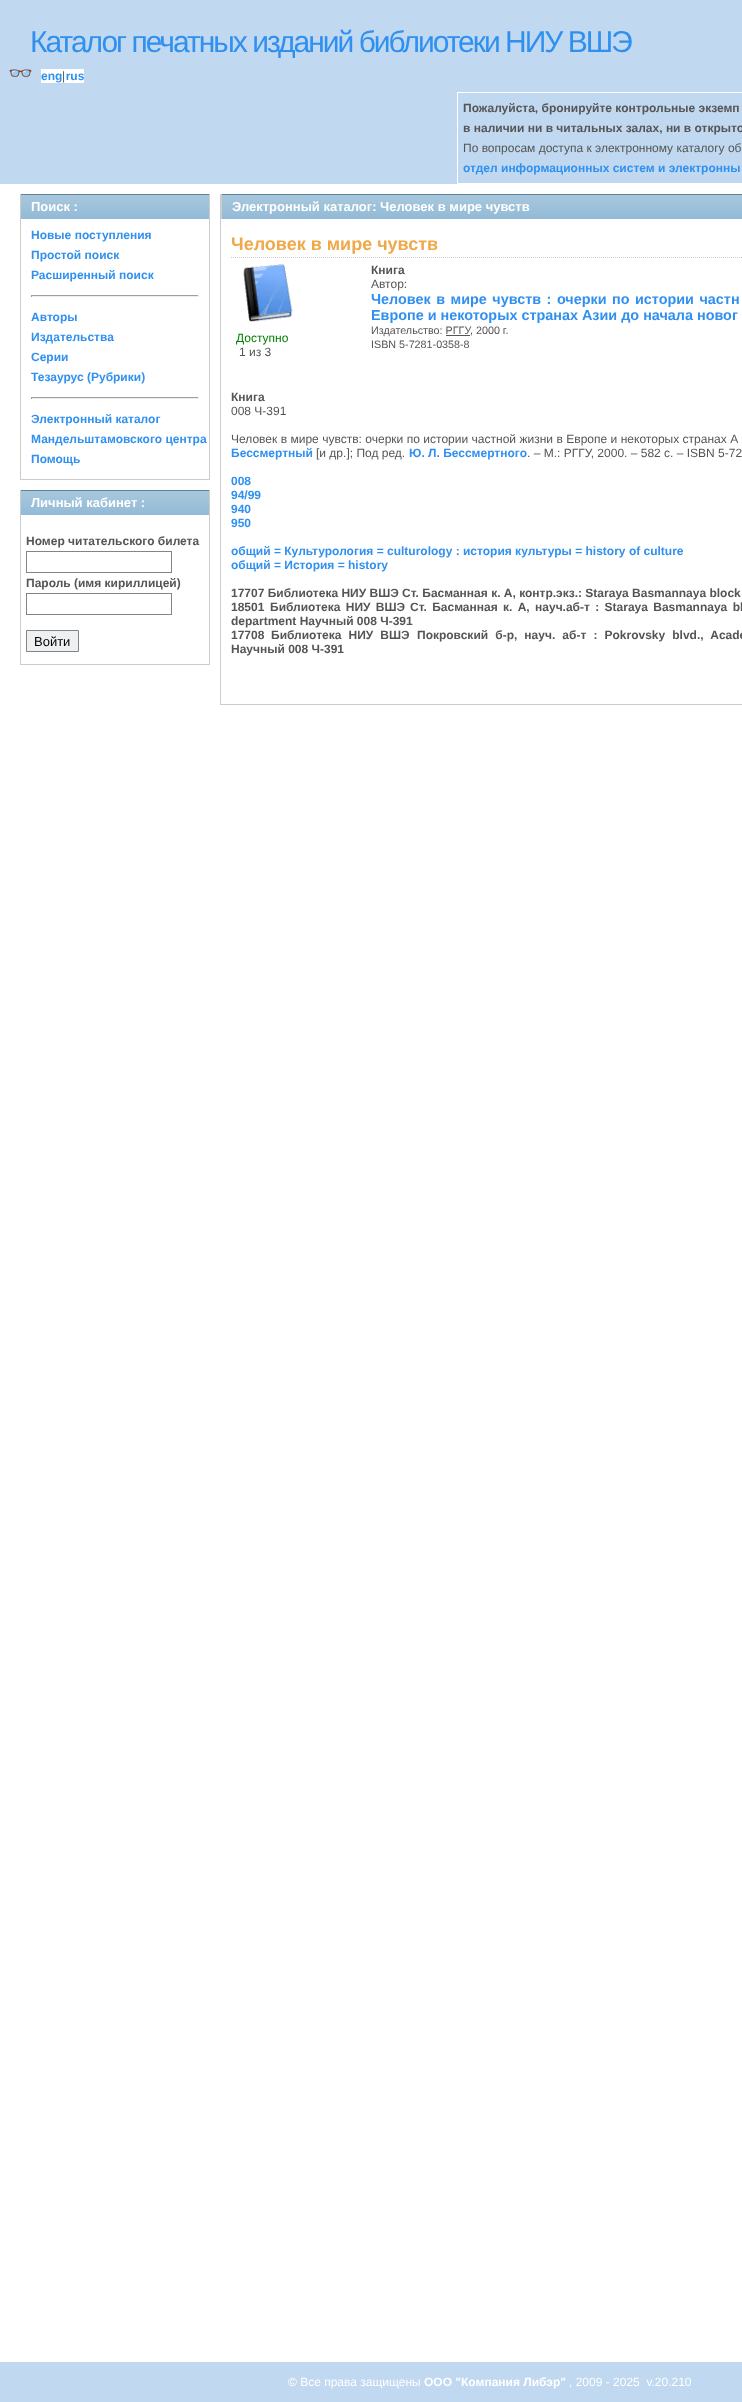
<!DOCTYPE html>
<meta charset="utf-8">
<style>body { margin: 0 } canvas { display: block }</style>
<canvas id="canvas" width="742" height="2402"></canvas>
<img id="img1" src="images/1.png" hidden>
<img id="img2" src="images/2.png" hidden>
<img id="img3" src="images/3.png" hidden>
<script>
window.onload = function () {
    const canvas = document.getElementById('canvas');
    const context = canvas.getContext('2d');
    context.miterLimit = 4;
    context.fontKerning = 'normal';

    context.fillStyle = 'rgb(255, 255, 255)';
    context.fillRect(0, 0, 742, 2402);
    context.fillStyle = 'rgb(192, 216, 240)';
    context.fillRect(0, 0, 742, 184);
    context.fillStyle = 'rgb(255, 255, 255)';
    context.fillRect(41, 69, 43, 14);
    context.strokeStyle = 'rgb(255, 255, 255)';
    context.strokeRect(457.5, 92.5, 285, 91);
    context.drawImage(document.getElementById('img1'), 21, 194, 188, 25);
    context.fillStyle = 'rgb(204, 204, 204)';
    context.fillRect(209, 194, 1, 286);
    context.fillRect(20, 194, 1, 25);
    context.fillRect(20, 479, 190, 1);
    context.fillRect(20, 219, 1, 261);
    context.fillStyle = 'rgb(159, 159, 159)';
    context.fillRect(31, 295, 168, 1);
    context.fillStyle = 'rgb(238, 238, 238)';
    context.fillRect(198, 295, 1, 2);
    context.fillRect(31, 296, 168, 1);
    context.fillStyle = 'rgb(159, 159, 159)';
    context.fillRect(31, 295, 1, 2);
    context.fillRect(31, 397, 168, 1);
    context.fillStyle = 'rgb(238, 238, 238)';
    context.fillRect(198, 397, 1, 2);
    context.fillRect(31, 398, 168, 1);
    context.fillStyle = 'rgb(159, 159, 159)';
    context.fillRect(31, 397, 1, 2);
    context.drawImage(document.getElementById('img1'), 21, 490, 188, 25);
    context.fillStyle = 'rgb(204, 204, 204)';
    context.fillRect(209, 490, 1, 175);
    context.fillRect(20, 490, 1, 25);
    context.fillRect(20, 664, 190, 1);
    context.fillRect(20, 515, 1, 150);
    context.strokeStyle = 'rgb(132, 131, 136)';
    context.strokeRect(26.5, 551.5, 145, 21);
    context.strokeRect(26.5, 593.5, 145, 21);
    context.fillStyle = 'rgb(238, 240, 241)';
    context.beginPath();
    context.rect(26.5, 630.5, 52, 21);
    context.fill();
    context.stroke();
    context.fillStyle = 'rgb(204, 204, 204)';
    context.fillRect(220, 704, 522, 1);
    context.fillRect(220, 194, 1, 511);
    context.drawImage(document.getElementById('img2'), 222, 194, 520, 25);
    context.fillRect(221, 194, 1, 25);
    context.beginPath();
    context.moveTo(231, 257.5);
    context.lineTo(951, 257.5);
    context.strokeStyle = 'rgb(204, 204, 204)';
    context.setLineDash([1, 1]);
    context.stroke();
    context.drawImage(document.getElementById('img3'), 243, 264, 50, 58);
    context.fillStyle = 'rgb(85, 85, 85)';
    context.fillRect(446, 335, 24, 1);
    context.fillStyle = 'rgb(192, 216, 240)';
    context.fillRect(0, 2362, 742, 40);
    context.letterSpacing = '-2px';
    context.font = '30px Liberation Sans';
    context.fillStyle = 'rgb(48, 144, 240)';
    context.fillText('Каталог печатных изданий библиотеки НИУ ВШЭ', 30, 52);
    context.letterSpacing = '0px';
    context.font = 'bold 20px Noto Color Emoji';
    context.fillText('👓', 8, 80);
    context.font = 'bold 12px Liberation Sans';
    context.fillText('eng rus', 41, 80);
    context.font = '12px Liberation Sans';
    context.fillStyle = 'rgb(85, 85, 85)';
    context.fillText('|', 62, 80);
    context.font = 'bold 12px Liberation Sans';
    context.fillText('Пожалуйста, бронируйте контрольные экземп', 463, 112);
    context.fillText('в наличии ни в читальных залах, ни в открыто', 463, 132);
    context.font = '12px Liberation Sans';
    context.fillText('По вопросам доступа к электронному каталогу об', 463, 152);
    context.font = 'bold 12px Liberation Sans';
    context.fillStyle = 'rgb(48, 144, 240)';
    context.fillText('отдел информационных систем и электронны', 463, 172);
    context.font = 'bold 13px Liberation Sans';
    context.fillStyle = 'rgb(255, 255, 255)';
    context.fillText('Поиск :', 31, 211);
    context.font = 'bold 12px Liberation Sans';
    context.fillStyle = 'rgb(48, 144, 240)';
    context.fillText('Новые поступления', 31, 239);
    context.fillText('Простой поиск', 31, 259);
    context.fillText('Расширенный поиск', 31, 279);
    context.fillText('Авторы', 31, 321);
    context.fillText('Издательства', 31, 341);
    context.fillText('Серии', 31, 361);
    context.fillText('Тезаурус (Рубрики)', 31, 381);
    context.fillText('Электронный каталог', 31, 423);
    context.fillText('Мандельштамовского центра', 31, 443);
    context.fillText('Помощь', 31, 463);
    context.font = 'bold 13px Liberation Sans';
    context.fillStyle = 'rgb(255, 255, 255)';
    context.fillText('Личный кабинет :', 31, 507);
    context.font = 'bold 12px Liberation Sans';
    context.fillStyle = 'rgb(85, 85, 85)';
    context.fillText('Номер читательского билета', 26, 545);
    context.fillText('Пароль (имя кириллицей)', 26, 587);
    context.font = '13px Liberation Sans';
    context.fillStyle = 'rgb(0, 0, 0)';
    context.fillText('Войти', 34, 646);
    context.font = 'bold 13px Liberation Sans';
    context.fillStyle = 'rgb(255, 255, 255)';
    context.fillText('Электронный каталог: Человек в мире чувств', 232, 211);
    context.font = 'bold 18px Liberation Sans';
    context.fillStyle = 'rgb(240, 168, 72)';
    context.fillText('Человек в мире чувств', 231, 250);
    context.font = '12px Liberation Sans';
    context.fillStyle = 'rgb(0, 128, 0)';
    context.fillText('Доступно', 236, 342);
    context.fillStyle = 'rgb(85, 85, 85)';
    context.fillText('1 из 3', 239, 356);
    context.font = 'bold 12px Liberation Sans';
    context.fillText('Книга', 371, 274);
    context.font = '12px Liberation Sans';
    context.fillText('Автор:', 371, 288);
    context.wordSpacing = '1.5px';
    context.font = 'bold 14.4px Liberation Sans';
    context.fillStyle = 'rgb(48, 144, 240)';
    context.fillText('Человек в мире чувств : очерки по истории частн', 371, 304);
    context.wordSpacing = '0px';
    context.fillText('Европе и некоторых странах Азии до начала новог', 371, 320);
    context.font = '10.75px Liberation Sans';
    context.fillStyle = 'rgb(85, 85, 85)';
    context.fillText('Издательство: РГГУ', 371, 334);
    context.fillText(', 2000 г.', 470, 334);
    context.fillText('ISBN 5-7281-0358-8', 371, 348);
    context.font = 'bold 12px Liberation Sans';
    context.fillText('Книга', 231, 401);
    context.font = '12px Liberation Sans';
    context.fillText('008 Ч-391', 231, 415);
    context.wordSpacing = '0.1px';
    context.fillText('Человек в мире чувств: очерки по истории частной жизни в Европе и некоторых странах А', 231, 443);
    context.wordSpacing = '0px';
    context.font = 'bold 12px Liberation Sans';
    context.fillStyle = 'rgb(48, 144, 240)';
    context.fillText('Бессмертный', 231, 457);
    context.font = '12px Liberation Sans';
    context.fillStyle = 'rgb(85, 85, 85)';
    context.fillText('[и др.]; Под ред.', 316, 457);
    context.font = 'bold 12px Liberation Sans';
    context.fillStyle = 'rgb(48, 144, 240)';
    context.fillText('Ю. Л. Бессмертного', 409, 457);
    context.font = '12px Liberation Sans';
    context.fillStyle = 'rgb(85, 85, 85)';
    context.fillText('. – М.: РГГУ, 2000. – 582 с. – ISBN 5-72', 527, 457);
    context.font = 'bold 12px Liberation Sans';
    context.fillStyle = 'rgb(48, 144, 240)';
    context.fillText('008', 231, 485);
    context.fillText('94/99', 231, 499);
    context.fillText('940', 231, 513);
    context.fillText('950', 231, 527);
    context.fillText('общий = Культурология = culturology : история культуры = history of culture', 231, 555);
    context.fillText('общий = История = history', 231, 569);
    context.fillStyle = 'rgb(85, 85, 85)';
    context.fillText('17707 Библиотека НИУ ВШЭ Ст. Басманная к. А, контр.экз.: Staraya Basmannaya block', 231, 597);
    context.fillText('18501', 231, 611);
    context.wordSpacing = '2px';
    context.fillText('Библиотека НИУ ВШЭ', 270, 611);
    context.fillText('Ст. Басманная к. А, науч.аб-т : Staraya Basmannaya bl', 410, 611);
    context.wordSpacing = '0px';
    context.fillText('department Научный 008 Ч-391', 231, 625);
    context.fillText('17708', 231, 639);
    context.wordSpacing = '3.75px';
    context.fillText('Библиотека НИУ ВШЭ', 271, 639);
    context.fillText('Покровский б-р, науч. аб-т : Pokrovsky blvd., Acade', 417, 639);
    context.wordSpacing = '0px';
    context.fillText('Научный 008 Ч-391', 231, 653);
    context.font = '12px Liberation Sans';
    context.fillStyle = 'rgb(255, 255, 255)';
    context.fillText('© Все права защищены', 288, 2386);
    context.font = 'bold 12px Liberation Sans';
    context.fillText('ООО "Компания Либэр"', 424, 2386);
    context.font = '12px Liberation Sans';
    context.fillText(', 2009 - 2025  v.20.210', 569, 2386);
};
</script>
